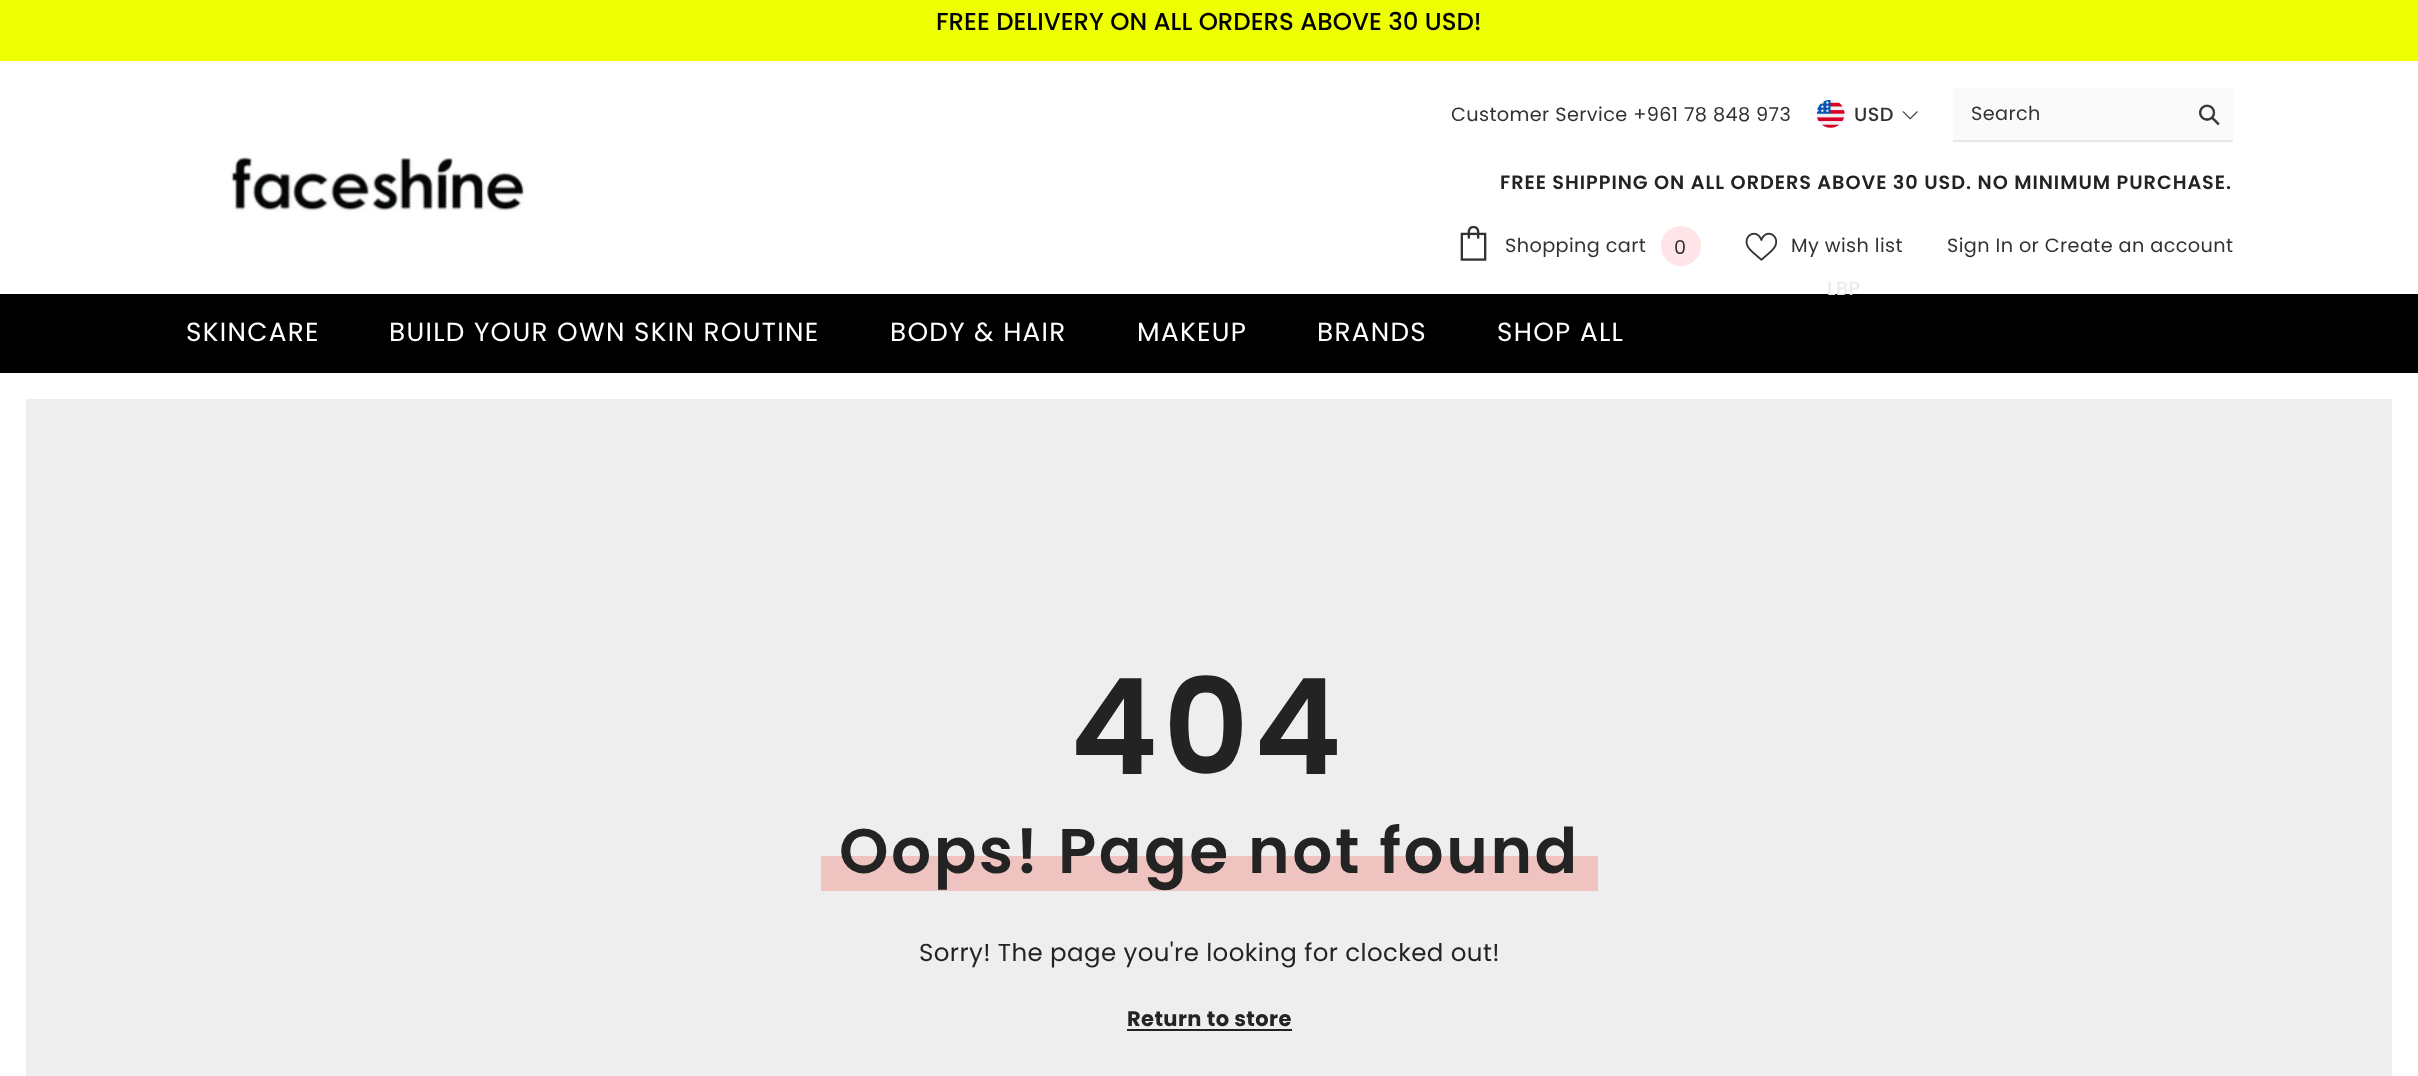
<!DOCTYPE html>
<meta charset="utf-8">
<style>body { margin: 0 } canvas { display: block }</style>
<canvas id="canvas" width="2418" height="1076"></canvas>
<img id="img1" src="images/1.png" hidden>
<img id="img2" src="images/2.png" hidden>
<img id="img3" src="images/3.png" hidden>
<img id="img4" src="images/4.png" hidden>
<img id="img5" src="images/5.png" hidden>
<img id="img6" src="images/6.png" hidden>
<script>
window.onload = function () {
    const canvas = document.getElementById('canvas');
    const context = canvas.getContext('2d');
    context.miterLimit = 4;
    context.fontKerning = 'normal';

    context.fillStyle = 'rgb(255, 255, 255)';
    context.fillRect(0, 0, 2418, 1076);
    context.fillStyle = 'rgb(237, 255, 0)';
    context.fillRect(0, 0, 2418, 61);
    context.drawImage(document.getElementById('img1'), 231, 157, 294, 55);
    context.drawImage(document.getElementById('img2'), 1817, 100, 28, 28);
    context.drawImage(document.getElementById('img3'), 1902, 111, 16, 9);
    context.fillStyle = 'rgb(250, 250, 250)';
    context.fillRect(1953, 88, 280, 52);
    context.fillStyle = 'rgb(231, 231, 231)';
    context.fillRect(1953, 140, 280, 2);
    context.drawImage(document.getElementById('img4'), 2199, 104, 21, 22);
    context.drawImage(document.getElementById('img5'), 1460, 226, 27, 35);
    context.fillStyle = 'rgb(255, 229, 232)';
    context.beginPath();
    context.arc(1681, 246, 20, 0, 2 * Math.PI);
    context.fill();
    context.drawImage(document.getElementById('img6'), 1745, 232, 33, 29);
    context.fillStyle = 'rgb(0, 0, 0)';
    context.fillRect(0, 294, 2418, 79);
    context.fillStyle = 'rgb(238, 238, 238)';
    context.fillRect(26, 399, 2366, 677);
    context.fillStyle = 'rgb(239, 195, 192)';
    context.fillRect(821, 856, 777, 35);
    context.fillStyle = 'rgb(35, 35, 35)';
    context.fillRect(1127, 1029, 165, 2);
    context.font = '500 24.5px Poppins';
    context.fillStyle = 'rgb(0, 0, 0)';
    context.fillText('FREE DELIVERY ON ALL ORDERS ABOVE 30 USD!', 936, 30);
    context.letterSpacing = '0.4px';
    context.font = '19.25px Poppins';
    context.fillStyle = 'rgb(50, 50, 50)';
    context.fillText('Customer Service +961 78 848 973', 1451, 121);
    context.font = '500 19.25px Poppins';
    context.fillText('USD', 1854, 121);
    context.fillStyle = 'rgb(235, 235, 235)';
    context.fillText('LBP', 1827, 295);
    context.font = '19.25px Poppins';
    context.fillStyle = 'rgb(50, 50, 50)';
    context.fillText('Search', 1971, 120);
    context.letterSpacing = '0.95px';
    context.font = '600 19.25px Poppins';
    context.fillStyle = 'rgb(35, 35, 35)';
    context.fillText('FREE SHIPPING ON ALL ORDERS ABOVE 30 USD. NO MINIMUM PURCHASE.', 1500, 189);
    context.letterSpacing = '0.4px';
    context.font = '19.25px Poppins';
    context.fillStyle = 'rgb(50, 50, 50)';
    context.fillText('Shopping cart', 1505, 252);
    context.letterSpacing = '0px';
    context.fillText('0', 1674, 254);
    context.letterSpacing = '0.4px';
    context.fillText('My wish list', 1791, 252);
    context.fillText('Sign In or Create an account', 1947, 252);
    context.letterSpacing = '1.3px';
    context.font = '26.25px Poppins';
    context.fillStyle = 'rgb(255, 255, 255)';
    context.fillText('SKINCARE', 186, 341);
    context.fillText('BUILD YOUR OWN SKIN ROUTINE', 389, 341);
    context.fillText('BODY & HAIR', 890, 341);
    context.fillText('MAKEUP', 1137, 341);
    context.fillText('BRANDS', 1317, 341);
    context.fillText('SHOP ALL', 1497, 341);
    context.letterSpacing = '5px';
    context.font = '600 133px Poppins';
    context.fillStyle = 'rgb(35, 35, 35)';
    context.fillText('404', 1070, 774);
    context.letterSpacing = '2.5px';
    context.font = '600 63px Poppins';
    context.fillText('Oops! Page not found', 839, 873);
    context.letterSpacing = '0.4px';
    context.font = '24.5px Poppins';
    context.fillText('Sorry! The page you\'re looking for clocked out!', 919, 961);
    context.font = 'bold 21px Poppins';
    context.fillText('Return to store', 1127, 1026);
};
</script>
